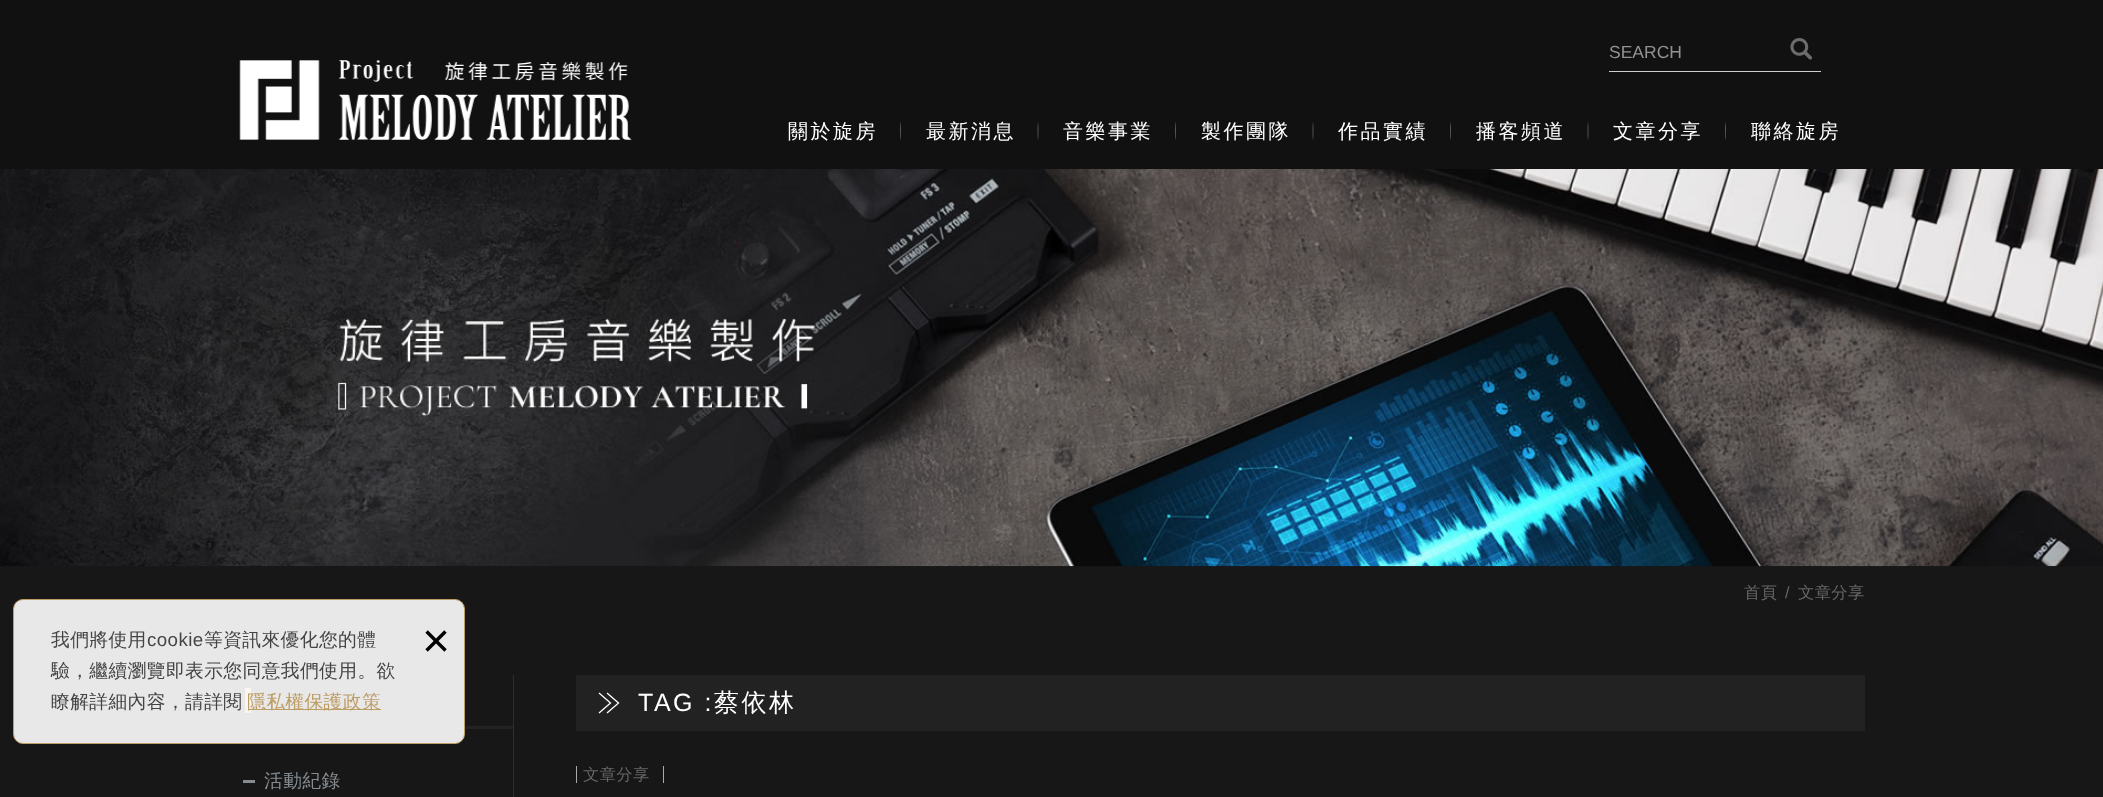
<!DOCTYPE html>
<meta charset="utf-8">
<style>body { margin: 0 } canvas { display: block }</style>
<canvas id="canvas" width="2103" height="797"></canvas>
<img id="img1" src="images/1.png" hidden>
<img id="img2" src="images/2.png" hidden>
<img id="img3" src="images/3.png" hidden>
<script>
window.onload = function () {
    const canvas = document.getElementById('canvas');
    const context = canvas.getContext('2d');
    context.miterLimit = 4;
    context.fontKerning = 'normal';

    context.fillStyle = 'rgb(23, 23, 23)';
    context.fillRect(0, 0, 2103, 797);
    context.fillStyle = 'rgb(17, 17, 17)';
    context.fillRect(0, 0, 2103, 169);
    context.fillStyle = 'rgb(206, 206, 206)';
    context.fillRect(1609, 71, 212, 1);
    context.drawImage(document.getElementById('img1'), 1790, 38, 22, 22);
    context.drawImage(document.getElementById('img2'), 239, 60, 393, 80);
    context.fillStyle = 'rgb(85, 85, 85)';
    context.beginPath();
    context.ellipse(900.5, 131, 0.5, 9, 0, 0, 2 * Math.PI);
    context.fill();
    context.beginPath();
    context.ellipse(1038, 131, 0.5, 9, 0, 0, 2 * Math.PI);
    context.fill();
    context.beginPath();
    context.ellipse(1175.5, 131, 0.5, 9, 0, 0, 2 * Math.PI);
    context.fill();
    context.beginPath();
    context.ellipse(1313, 131, 0.5, 9, 0, 0, 2 * Math.PI);
    context.fill();
    context.beginPath();
    context.ellipse(1450.5, 131, 0.5, 9, 0, 0, 2 * Math.PI);
    context.fill();
    context.beginPath();
    context.ellipse(1588, 131, 0.5, 9, 0, 0, 2 * Math.PI);
    context.fill();
    context.beginPath();
    context.ellipse(1725.5, 131, 0.5, 9, 0, 0, 2 * Math.PI);
    context.fill();
    context.fillStyle = 'rgb(34, 34, 34)';
    context.fillRect(240, 726, 273, 3);
    context.fillStyle = 'rgb(189, 157, 100)';
    context.fillRect(245, 688, 6, 25);
    context.fillStyle = 'rgba(255, 255, 255, 0.9)';
    context.beginPath();
    context.roundRect(13.5, 599.5, 451, 144, 9.5);
    context.fill();
    context.strokeStyle = 'rgb(189, 157, 100)';
    context.stroke();
    context.fillStyle = 'rgb(189, 157, 100)';
    context.fillRect(248, 709, 133, 1);
    context.drawImage(document.getElementById('img3'), 0, 169, 2103, 398);
    context.fillStyle = 'rgb(44, 45, 46)';
    context.fillRect(513, 675, 1, 122);
    context.fillStyle = 'rgb(133, 140, 145)';
    context.fillRect(243, 780, 12, 3);
    context.fillStyle = 'rgb(34, 34, 34)';
    context.fillRect(576, 675, 1289, 56);
    context.beginPath();
    context.moveTo(599, 693);
    context.lineTo(610.5, 703);
    context.lineTo(599, 713);
    context.moveTo(607, 693);
    context.lineTo(618.5, 703);
    context.lineTo(607, 713);
    context.strokeStyle = 'rgb(255, 255, 255)';
    context.lineWidth = 1.3;
    context.stroke();
    context.fillStyle = 'rgb(170, 170, 170)';
    context.fillRect(663, 766, 1, 17);
    context.fillRect(576, 766, 1, 17);
    context.font = '17.5px Liberation Sans';
    context.fillStyle = 'rgb(146, 146, 146)';
    context.fillText('SEARCH', 1609, 58);
    context.letterSpacing = '2.5px';
    context.font = '500 20px WenQuanYi Zen Hei';
    context.fillStyle = 'rgb(255, 255, 255)';
    context.fillText('關於旋房', 788, 138);
    context.fillText('最新消息', 926, 138);
    context.fillText('音樂事業', 1063, 138);
    context.fillText('製作團隊', 1201, 138);
    context.fillText('作品實績', 1338, 138);
    context.fillText('播客頻道', 1476, 138);
    context.fillText('文章分享', 1613, 138);
    context.fillText('聯絡旋房', 1751, 138);
    context.letterSpacing = '0.4px';
    context.font = '500 18.75px WenQuanYi Zen Hei';
    context.fillStyle = 'rgb(68, 68, 68)';
    context.fillText('我們將使用', 51, 646);
    context.font = '18.75px Liberation Sans';
    context.fillText('cookie', 147, 646);
    context.font = '500 18.75px WenQuanYi Zen Hei';
    context.fillText('等資訊來優化您的體', 204, 646);
    context.fillText('驗，繼續瀏覽即表示您同意我們使用。欲', 51, 677);
    context.fillText('瞭解詳細內容，請詳閱', 51, 708);
    context.fillStyle = 'rgb(189, 157, 100)';
    context.fillText('隱私權保護政策', 247, 708);
    context.letterSpacing = '0px';
    context.font = '48px Liberation Sans';
    context.fillStyle = 'rgb(0, 0, 0)';
    context.fillText('×', 422, 657);
    context.letterSpacing = '0.4px';
    context.font = '500 16.25px WenQuanYi Zen Hei';
    context.fillStyle = 'rgb(102, 102, 102)';
    context.fillText('首頁', 1744, 598);
    context.font = '16.25px Liberation Sans';
    context.fillText('/', 1785, 598);
    context.font = '500 16.25px WenQuanYi Zen Hei';
    context.fillText('文章分享', 1798, 598);
    context.font = '500 18.75px WenQuanYi Zen Hei';
    context.fillStyle = 'rgb(133, 140, 145)';
    context.fillText('活動紀錄', 264, 787);
    context.letterSpacing = '2.5px';
    context.font = '25px Liberation Sans';
    context.fillStyle = 'rgb(255, 255, 255)';
    context.fillText('TAG :', 638, 711);
    context.font = '500 25px WenQuanYi Zen Hei';
    context.fillText('蔡依林', 714, 711);
    context.letterSpacing = '0.4px';
    context.font = '500 16.25px WenQuanYi Zen Hei';
    context.fillStyle = 'rgb(102, 102, 102)';
    context.fillText('文章分享', 583, 780);
};
</script>
